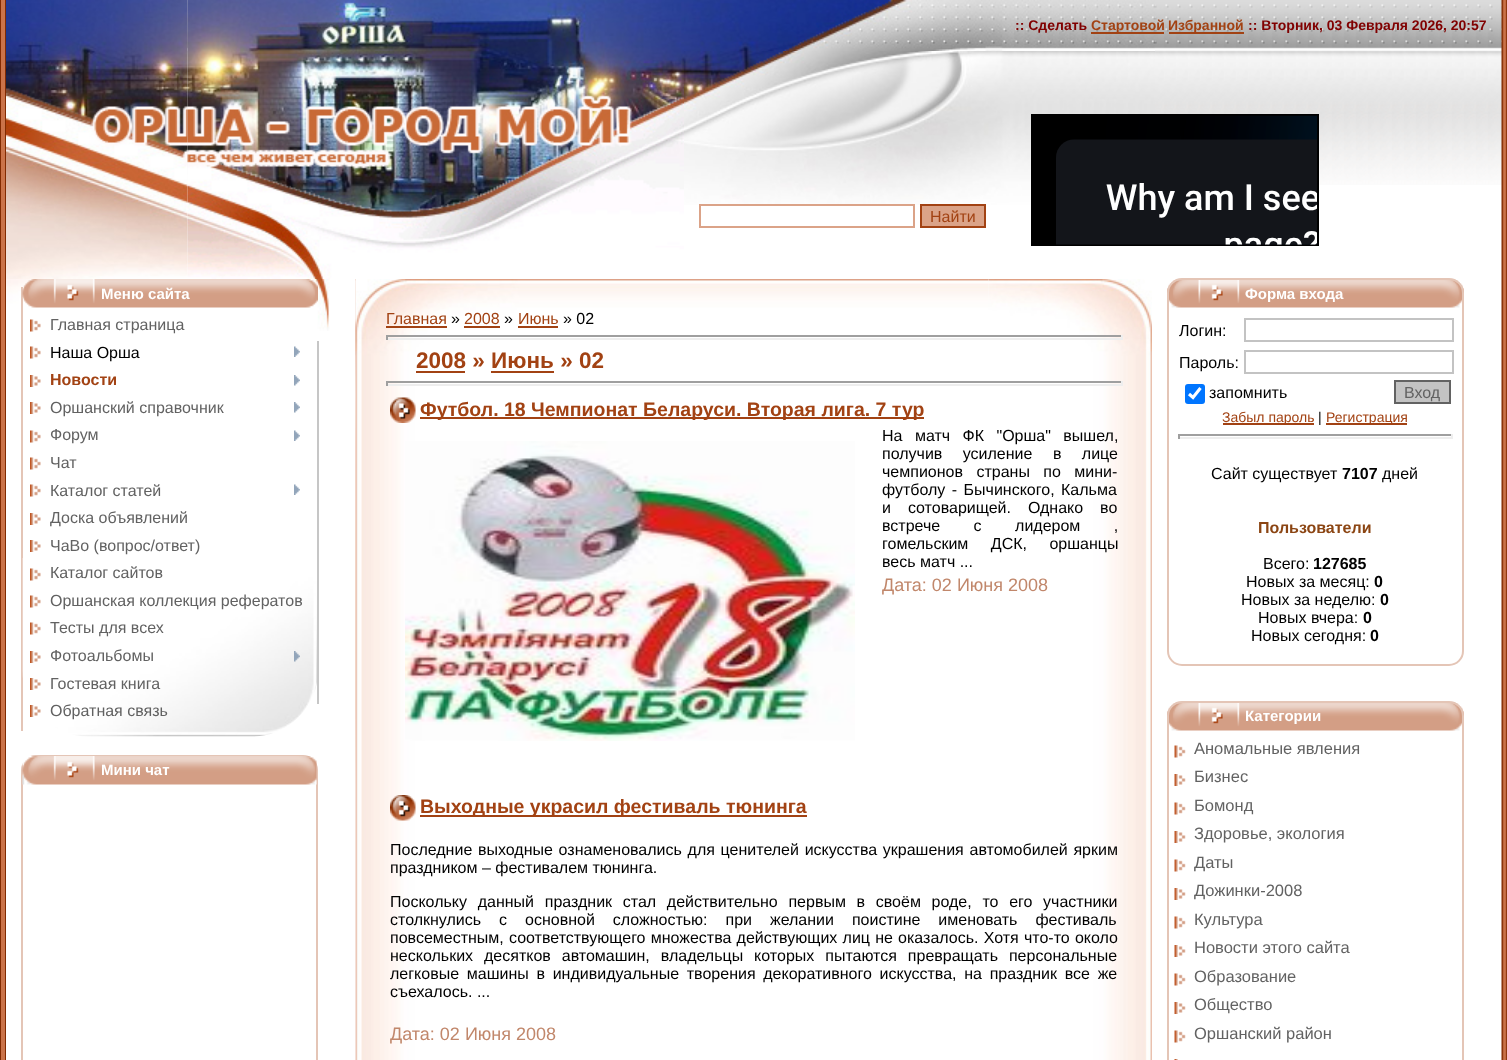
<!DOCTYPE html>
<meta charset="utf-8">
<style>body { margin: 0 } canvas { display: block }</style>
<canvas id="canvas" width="1507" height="1060"></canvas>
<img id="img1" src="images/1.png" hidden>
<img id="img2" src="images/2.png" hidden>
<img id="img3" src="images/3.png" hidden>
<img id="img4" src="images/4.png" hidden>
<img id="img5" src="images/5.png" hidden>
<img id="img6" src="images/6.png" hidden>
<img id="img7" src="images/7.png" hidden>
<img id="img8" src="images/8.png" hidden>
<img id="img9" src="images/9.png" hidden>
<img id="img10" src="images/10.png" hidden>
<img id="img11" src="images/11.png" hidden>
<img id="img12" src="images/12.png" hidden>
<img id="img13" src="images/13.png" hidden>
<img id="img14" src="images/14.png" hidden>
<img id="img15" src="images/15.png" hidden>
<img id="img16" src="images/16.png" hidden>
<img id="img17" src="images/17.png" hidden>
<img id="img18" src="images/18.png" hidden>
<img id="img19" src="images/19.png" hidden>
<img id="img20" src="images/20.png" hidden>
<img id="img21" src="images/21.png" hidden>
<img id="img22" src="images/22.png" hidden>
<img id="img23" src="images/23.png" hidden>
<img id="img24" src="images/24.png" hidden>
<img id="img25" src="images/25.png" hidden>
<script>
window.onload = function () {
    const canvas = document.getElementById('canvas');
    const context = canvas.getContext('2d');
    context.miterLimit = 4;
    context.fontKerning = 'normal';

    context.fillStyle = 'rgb(255, 255, 255)';
    context.fillRect(0, 0, 1507, 1060);
    context.drawImage(document.getElementById('img1'), 187, 0, 1315, 185);
    context.fillStyle = 'rgb(130, 43, 1)';
    context.fillRect(0, 0, 6, 1060);
    context.fillStyle = 'rgb(202, 115, 73)';
    context.fillRect(1, 0, 4, 1060);
    context.drawImage(document.getElementById('img2'), 6, 0, 182, 279);
    context.drawImage(document.getElementById('img3'), 187, 0, 497, 279);
    context.drawImage(document.getElementById('img4'), 684, 0, 471, 51);
    context.fillStyle = 'rgb(162, 66, 19)';
    context.fillRect(1091, 32, 73, 2);
    context.fillRect(1169, 32, 75, 2);
    context.drawImage(document.getElementById('img5'), 684, 51, 471, 154);
    context.strokeStyle = 'rgb(219, 163, 136)';
    context.lineWidth = 2;
    context.strokeRect(700, 205, 214, 22);
    context.fillStyle = 'rgb(219, 163, 136)';
    context.beginPath();
    context.rect(921, 205, 64, 22);
    context.fill();
    context.strokeStyle = 'rgb(162, 66, 19)';
    context.stroke();
    context.strokeStyle = 'rgb(0, 0, 0)';
    context.strokeRect(1032, 115, 286, 130);
    context.drawImage(document.getElementById('img6'), 1033, 115, 284, 130);
    context.drawImage(document.getElementById('img7'), 6, 279, 324, 52);
    context.fillStyle = 'rgb(228, 197, 182)';
    context.fillRect(21, 287, 2, 444);
    context.drawImage(document.getElementById('img8'), 22, 279, 296, 29);
    context.drawImage(document.getElementById('img9'), 22, 558, 295, 179);
    context.fillStyle = 'rgb(198, 198, 198)';
    context.fillRect(317, 341, 2, 363);
    context.drawImage(document.getElementById('img10'), 30, 319, 11, 13);
    context.drawImage(document.getElementById('img10'), 30, 346, 11, 13);
    context.drawImage(document.getElementById('img11'), 294, 346, 6, 11);
    context.drawImage(document.getElementById('img12'), 30, 375, 11, 12);
    context.drawImage(document.getElementById('img13'), 294, 375, 6, 11);
    context.drawImage(document.getElementById('img12'), 30, 402, 11, 12);
    context.drawImage(document.getElementById('img13'), 294, 402, 6, 11);
    context.drawImage(document.getElementById('img10'), 30, 430, 11, 13);
    context.drawImage(document.getElementById('img11'), 294, 430, 6, 11);
    context.drawImage(document.getElementById('img10'), 30, 457, 11, 13);
    context.drawImage(document.getElementById('img10'), 30, 484, 11, 13);
    context.drawImage(document.getElementById('img11'), 294, 484, 6, 11);
    context.drawImage(document.getElementById('img12'), 30, 513, 11, 12);
    context.drawImage(document.getElementById('img12'), 30, 540, 11, 12);
    context.drawImage(document.getElementById('img10'), 30, 568, 11, 13);
    context.drawImage(document.getElementById('img10'), 30, 595, 11, 13);
    context.drawImage(document.getElementById('img10'), 30, 622, 11, 13);
    context.drawImage(document.getElementById('img12'), 30, 651, 11, 12);
    context.drawImage(document.getElementById('img14'), 294, 651, 6, 11);
    context.drawImage(document.getElementById('img12'), 30, 678, 11, 12);
    context.drawImage(document.getElementById('img12'), 30, 705, 11, 12);
    context.beginPath();
    context.roundRect(22, 756, 295, 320, 14);
    context.strokeStyle = 'rgb(228, 197, 182)';
    context.stroke();
    context.drawImage(document.getElementById('img15'), 22, 756, 295, 29);
    context.drawImage(document.getElementById('img16'), 355, 279, 301, 580);
    context.drawImage(document.getElementById('img17'), 355, 279, 797, 781);
    context.fillStyle = 'rgb(162, 66, 19)';
    context.fillRect(386, 326, 61, 2);
    context.fillRect(464, 326, 36, 2);
    context.fillRect(518, 326, 40, 2);
    context.fillStyle = 'rgb(159, 159, 159)';
    context.fillRect(386, 335, 736, 2);
    context.fillStyle = 'rgb(238, 238, 238)';
    context.fillRect(1121, 335, 2, 5);
    context.fillRect(386, 338, 736, 2);
    context.fillStyle = 'rgb(159, 159, 159)';
    context.fillRect(386, 335, 2, 5);
    context.fillStyle = 'rgb(162, 66, 19)';
    context.fillRect(416, 371, 49, 2);
    context.fillRect(491, 371, 63, 2);
    context.fillStyle = 'rgb(159, 159, 159)';
    context.fillRect(386, 381, 736, 2);
    context.fillStyle = 'rgb(238, 238, 238)';
    context.fillRect(1121, 381, 2, 5);
    context.fillRect(386, 384, 736, 2);
    context.fillStyle = 'rgb(159, 159, 159)';
    context.fillRect(386, 381, 2, 5);
    context.drawImage(document.getElementById('img18'), 390, 397, 26, 26);
    context.fillStyle = 'rgb(162, 66, 19)';
    context.fillRect(420, 417, 504, 2);
    context.drawImage(document.getElementById('img19'), 405, 441, 450, 300);
    context.drawImage(document.getElementById('img20'), 390, 795, 26, 26);
    context.fillRect(420, 815, 387, 2);
    context.drawImage(document.getElementById('img21'), 1167, 279, 297, 29);
    context.beginPath();
    context.roundRect(1168, 279, 295, 386, 14);
    context.stroke();
    context.strokeStyle = 'rgb(195, 195, 195)';
    context.strokeRect(1245, 319, 208, 22);
    context.strokeRect(1245, 351, 208, 22);
    context.fillStyle = 'rgb(0, 117, 255)';
    context.beginPath();
    context.roundRect(1185, 384, 20, 20, 3);
    context.fill();
    context.beginPath();
    context.moveTo(1189, 394);
    context.lineTo(1193, 397.5);
    context.lineTo(1200.5, 388);
    context.strokeStyle = 'rgb(255, 255, 255)';
    context.lineWidth = 3.1;
    context.stroke();
    context.fillStyle = 'rgb(195, 195, 195)';
    context.beginPath();
    context.rect(1395, 381, 55, 22);
    context.fill();
    context.strokeStyle = 'rgb(98, 98, 98)';
    context.lineWidth = 2;
    context.stroke();
    context.fillStyle = 'rgb(162, 66, 19)';
    context.fillRect(1223, 423, 91, 2);
    context.fillRect(1326, 423, 81, 2);
    context.fillStyle = 'rgb(159, 159, 159)';
    context.fillRect(1178, 434, 274, 2);
    context.fillStyle = 'rgb(238, 238, 238)';
    context.fillRect(1451, 434, 2, 5);
    context.fillRect(1178, 437, 274, 2);
    context.fillStyle = 'rgb(159, 159, 159)';
    context.fillRect(1178, 434, 2, 5);
    context.drawImage(document.getElementById('img21'), 1167, 702, 297, 29);
    context.beginPath();
    context.roundRect(1168, 702, 295, 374, 14);
    context.strokeStyle = 'rgb(228, 197, 182)';
    context.stroke();
    context.drawImage(document.getElementById('img22'), 1174, 745, 12, 13);
    context.drawImage(document.getElementById('img23'), 1174, 774, 12, 12);
    context.drawImage(document.getElementById('img22'), 1174, 802, 12, 13);
    context.drawImage(document.getElementById('img23'), 1174, 831, 12, 12);
    context.drawImage(document.getElementById('img22'), 1174, 859, 12, 13);
    context.drawImage(document.getElementById('img23'), 1174, 888, 12, 12);
    context.drawImage(document.getElementById('img22'), 1174, 916, 12, 13);
    context.drawImage(document.getElementById('img23'), 1174, 945, 12, 12);
    context.drawImage(document.getElementById('img22'), 1174, 973, 12, 13);
    context.drawImage(document.getElementById('img23'), 1174, 1002, 12, 12);
    context.drawImage(document.getElementById('img22'), 1174, 1030, 12, 13);
    context.drawImage(document.getElementById('img24'), 1174, 1059, 4, 1);
    context.drawImage(document.getElementById('img25'), 1501, 0, 6, 1060);
    context.font = 'bold 14px Liberation Sans';
    context.fillStyle = 'rgb(128, 0, 0)';
    context.fillText(':: Сделать', 1015, 30);
    context.fillStyle = 'rgb(162, 66, 19)';
    context.fillText('Стартовой', 1091, 30);
    context.fillText('Избранной', 1168, 30);
    context.fillStyle = 'rgb(128, 0, 0)';
    context.fillText(':: Вторник, 03 Февраля 2026, 20:57', 1248, 30);
    context.font = '16px Liberation Sans';
    context.fillStyle = 'rgb(162, 66, 19)';
    context.fillText('Найти', 930, 222);
    context.font = 'bold 15px Liberation Sans';
    context.fillStyle = 'rgb(255, 255, 255)';
    context.fillText('Меню сайта', 101, 299);
    context.font = '16px Liberation Sans';
    context.fillStyle = 'rgb(98, 98, 98)';
    context.fillText('Главная страница', 50, 330);
    context.fillStyle = 'rgb(0, 0, 0)';
    context.fillText('Наша Орша', 50, 358);
    context.font = 'bold 16px Liberation Sans';
    context.fillStyle = 'rgb(162, 66, 19)';
    context.fillText('Новости', 50, 385);
    context.font = '16px Liberation Sans';
    context.fillStyle = 'rgb(98, 98, 98)';
    context.fillText('Оршанский справочник', 50, 413);
    context.fillText('Форум', 50, 440);
    context.fillText('Чат', 50, 468);
    context.fillText('Каталог статей', 50, 496);
    context.fillText('Доска объявлений', 50, 523);
    context.fillText('ЧаВо (вопрос/ответ)', 50, 551);
    context.fillText('Каталог сайтов', 50, 578);
    context.fillText('Оршанская коллекция рефератов', 50, 606);
    context.fillText('Тесты для всех', 50, 633);
    context.fillText('Фотоальбомы', 50, 661);
    context.fillText('Гостевая книга', 50, 689);
    context.fillText('Обратная связь', 50, 716);
    context.font = 'bold 15px Liberation Sans';
    context.fillStyle = 'rgb(255, 255, 255)';
    context.fillText('Мини чат', 101, 775);
    context.font = '16px Liberation Sans';
    context.fillStyle = 'rgb(162, 66, 19)';
    context.fillText('Главная', 386, 324);
    context.fillStyle = 'rgb(0, 0, 0)';
    context.fillText('»', 451, 324);
    context.fillStyle = 'rgb(162, 66, 19)';
    context.fillText('2008', 464, 324);
    context.fillStyle = 'rgb(0, 0, 0)';
    context.fillText('»', 504, 324);
    context.fillStyle = 'rgb(162, 66, 19)';
    context.fillText('Июнь', 518, 324);
    context.fillStyle = 'rgb(0, 0, 0)';
    context.fillText('» 02', 563, 324);
    context.font = 'bold 22.5px Liberation Sans';
    context.fillStyle = 'rgb(162, 66, 19)';
    context.fillText('2008 » Июнь » 02', 416, 368);
    context.font = 'bold 19.5px Liberation Sans';
    context.fillText('Футбол. 18 Чемпионат Беларуси. Вторая лига. 7 тур', 420, 416);
    context.wordSpacing = '8px';
    context.font = '16px Liberation Sans';
    context.fillStyle = 'rgb(0, 0, 0)';
    context.fillText('На матч ФК "Орша" вышел,', 882, 441);
    context.wordSpacing = '16px';
    context.fillText('получив усиление в лице', 882, 459);
    context.wordSpacing = '9px';
    context.fillText('чемпионов страны по мини-', 882, 477);
    context.wordSpacing = '2px';
    context.fillText('футболу - Бычинского, Кальма', 882, 495);
    context.wordSpacing = '12.5px';
    context.fillText('и сотоварищей. Однако во', 882, 513);
    context.wordSpacing = '29px';
    context.fillText('встрече с лидером ,', 882, 531);
    context.wordSpacing = '18px';
    context.fillText('гомельским ДСК, оршанцы', 882, 549);
    context.wordSpacing = '0px';
    context.fillText('весь матч ...', 882, 567);
    context.font = '18px Liberation Sans';
    context.fillStyle = 'rgb(193, 135, 107)';
    context.fillText('Дата: 02 Июня 2008', 882, 591);
    context.font = 'bold 19.5px Liberation Sans';
    context.fillStyle = 'rgb(162, 66, 19)';
    context.fillText('Выходные украсил фестиваль тюнинга', 420, 813);
    context.wordSpacing = '1.25px';
    context.font = '16px Liberation Sans';
    context.fillStyle = 'rgb(0, 0, 0)';
    context.fillText('Последние выходные ознаменовались для ценителей искусства украшения автомобилей ярким', 390, 855);
    context.wordSpacing = '0px';
    context.fillText('праздником – фестивалем тюнинга.', 390, 873);
    context.wordSpacing = '6.25px';
    context.fillText('Поскольку данный праздник стал действительно первым в своём роде, то его участники', 390, 907);
    context.wordSpacing = '13.5px';
    context.fillText('столкнулись с основной сложностью: при желании поистине именовать фестиваль', 390, 925);
    context.wordSpacing = '0.75px';
    context.fillText('повсеместным, соответствующего множества действующих лиц не оказалось. Хотя что-то около', 390, 943);
    context.wordSpacing = '6.5px';
    context.fillText('нескольких десятков автомашин, владельцы которых пытаются превращать персональные', 390, 961);
    context.wordSpacing = '3.25px';
    context.fillText('легковые машины в индивидуальные творения декоративного искусства, на праздник все же', 390, 979);
    context.wordSpacing = '0px';
    context.fillText('съехалось. ...', 390, 997);
    context.font = '18px Liberation Sans';
    context.fillStyle = 'rgb(193, 135, 107)';
    context.fillText('Дата: 02 Июня 2008', 390, 1040);
    context.font = 'bold 15px Liberation Sans';
    context.fillStyle = 'rgb(255, 255, 255)';
    context.fillText('Форма входа', 1245, 299);
    context.font = '16px Liberation Sans';
    context.fillStyle = 'rgb(0, 0, 0)';
    context.fillText('Логин:', 1179, 336);
    context.fillText('Пароль:', 1179, 368);
    context.fillText('запомнить', 1209, 398);
    context.fillStyle = 'rgb(98, 98, 98)';
    context.fillText('Вход', 1404, 398);
    context.font = '14px Liberation Sans';
    context.fillStyle = 'rgb(162, 66, 19)';
    context.fillText('Забыл пароль', 1222, 422);
    context.fillStyle = 'rgb(0, 0, 0)';
    context.fillText('|', 1318, 422);
    context.fillStyle = 'rgb(162, 66, 19)';
    context.fillText('Регистрация', 1326, 422);
    context.font = '16px Liberation Sans';
    context.fillStyle = 'rgb(0, 0, 0)';
    context.fillText('Сайт существует', 1211, 479);
    context.font = 'bold 16px Liberation Sans';
    context.fillText('7107', 1342, 479);
    context.font = '16px Liberation Sans';
    context.fillText('дней', 1382, 479);
    context.font = 'bold 16px Liberation Sans';
    context.fillStyle = 'rgb(139, 69, 19)';
    context.fillText('Пользователи', 1258, 533);
    context.font = '16px Liberation Sans';
    context.fillStyle = 'rgb(0, 0, 0)';
    context.fillText('Всего:', 1263, 569);
    context.font = 'bold 16px Liberation Sans';
    context.fillText('127685', 1313, 569);
    context.font = '16px Liberation Sans';
    context.fillText('Новых за месяц:', 1246, 587);
    context.font = 'bold 16px Liberation Sans';
    context.fillText('0', 1374, 587);
    context.font = '16px Liberation Sans';
    context.fillText('Новых за неделю:', 1241, 605);
    context.font = 'bold 16px Liberation Sans';
    context.fillText('0', 1380, 605);
    context.font = '16px Liberation Sans';
    context.fillText('Новых вчера:', 1258, 623);
    context.font = 'bold 16px Liberation Sans';
    context.fillText('0', 1363, 623);
    context.font = '16px Liberation Sans';
    context.fillText('Новых сегодня:', 1251, 641);
    context.font = 'bold 16px Liberation Sans';
    context.fillText('0', 1370, 641);
    context.font = 'bold 15px Liberation Sans';
    context.fillStyle = 'rgb(255, 255, 255)';
    context.fillText('Категории', 1245, 721);
    context.font = '16.5px Liberation Sans';
    context.fillStyle = 'rgb(98, 98, 98)';
    context.fillText('Аномальные явления', 1194, 754);
    context.fillText('Бизнес', 1194, 782);
    context.fillText('Бомонд', 1194, 811);
    context.fillText('Здоровье, экология', 1194, 839);
    context.fillText('Даты', 1194, 868);
    context.fillText('Дожинки-2008', 1194, 896);
    context.fillText('Культура', 1194, 925);
    context.fillText('Новости этого сайта', 1194, 953);
    context.fillText('Образование', 1194, 982);
    context.fillText('Общество', 1194, 1010);
    context.fillText('Оршанский район', 1194, 1039);
};
</script>
